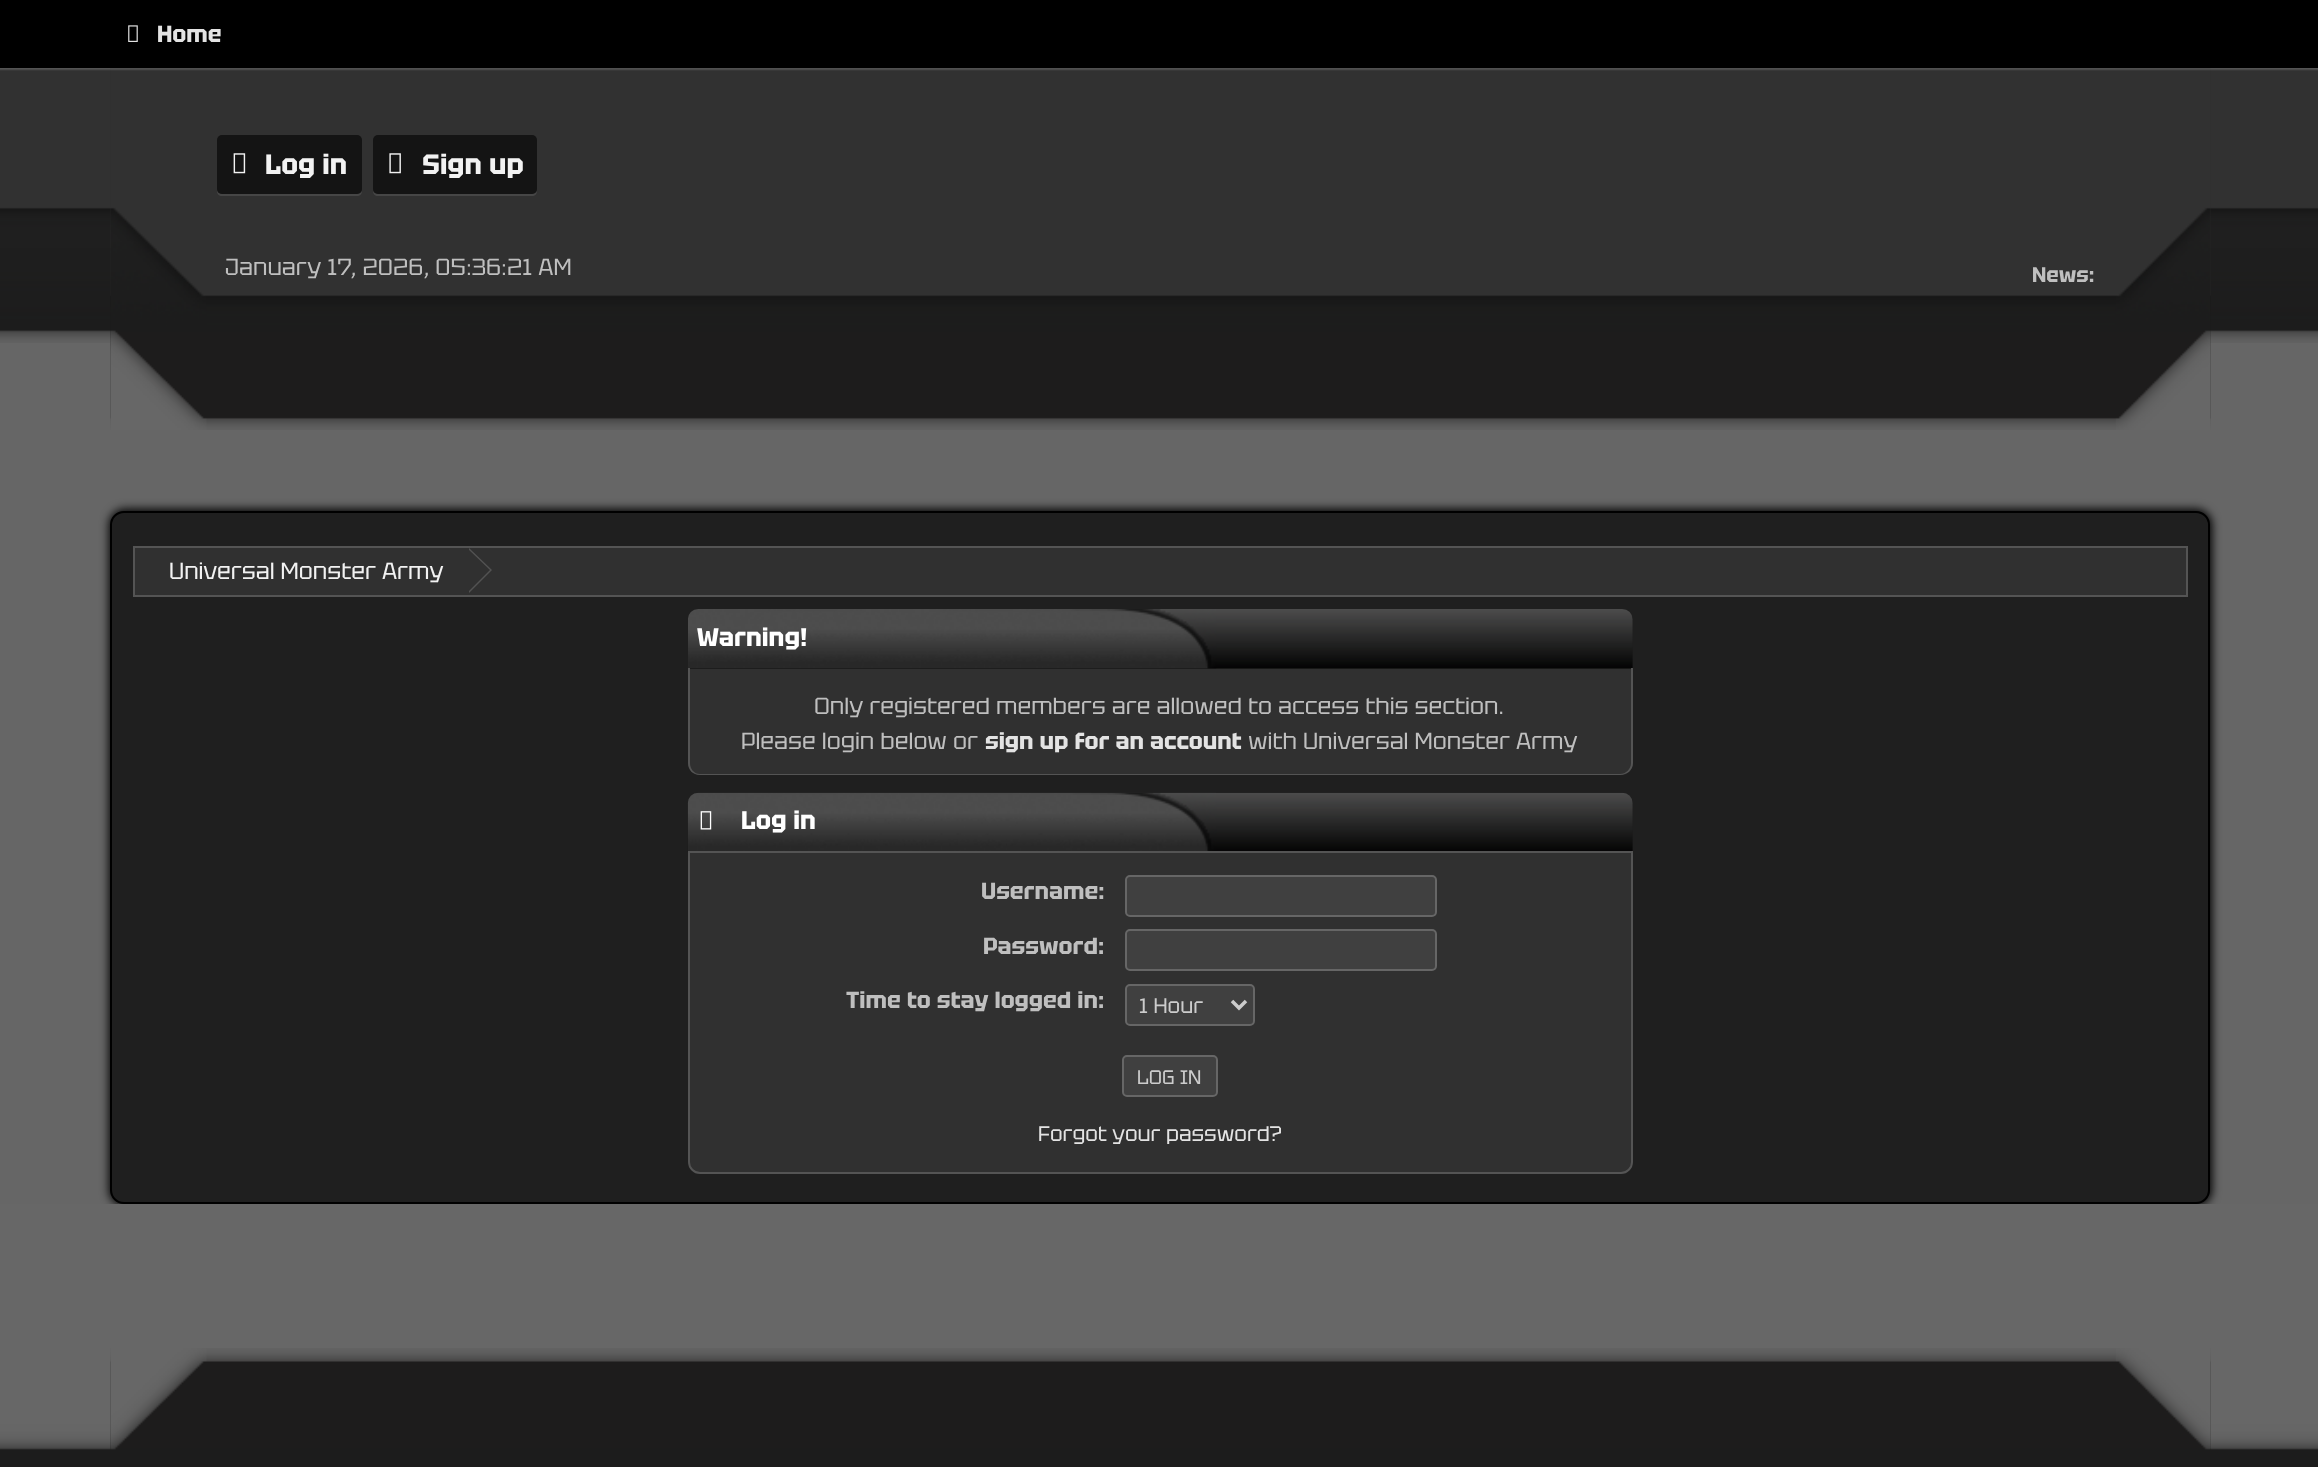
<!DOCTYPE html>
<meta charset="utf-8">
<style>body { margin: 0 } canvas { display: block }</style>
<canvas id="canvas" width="2318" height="1467"></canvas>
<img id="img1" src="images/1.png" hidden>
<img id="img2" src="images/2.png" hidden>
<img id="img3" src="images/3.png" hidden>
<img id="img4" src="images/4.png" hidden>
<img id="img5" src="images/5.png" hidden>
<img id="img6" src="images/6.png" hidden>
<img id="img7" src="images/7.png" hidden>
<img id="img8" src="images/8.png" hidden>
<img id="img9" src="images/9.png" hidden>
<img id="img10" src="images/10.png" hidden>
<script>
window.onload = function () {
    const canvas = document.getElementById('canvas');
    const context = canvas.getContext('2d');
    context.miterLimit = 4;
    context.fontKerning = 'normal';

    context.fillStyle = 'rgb(102, 102, 102)';
    context.fillRect(0, 0, 2318, 1467);
    context.fillStyle = 'rgb(0, 0, 0)';
    context.fillRect(0, 0, 2318, 68);
    context.drawImage(document.getElementById('img1'), 128, 25, 10, 17);
    context.drawImage(document.getElementById('img2'), 0, 68, 2318, 275);
    context.drawImage(document.getElementById('img3'), 110, 68, 2101, 362);
    context.fillStyle = 'rgb(70, 70, 70)';
    context.beginPath();
    context.moveTo(217, 189);
    context.lineTo(217, 191);
    context.bezierCurveTo(217, 194, 219, 196, 222, 196);
    context.lineTo(357, 196);
    context.bezierCurveTo(360, 196, 362, 194, 362, 191);
    context.bezierCurveTo(361, 193, 359, 194, 357, 194);
    context.lineTo(222, 194);
    context.bezierCurveTo(219, 194, 217, 192, 217, 189);
    context.closePath();
    context.fill();
    context.fillStyle = 'rgb(20, 20, 20)';
    context.beginPath();
    context.roundRect(217, 135, 145, 59, 5);
    context.fill();
    context.drawImage(document.getElementById('img4'), 233, 153, 13, 21);
    context.fillStyle = 'rgb(70, 70, 70)';
    context.beginPath();
    context.moveTo(373, 191);
    context.bezierCurveTo(373, 194, 375, 196, 378, 196);
    context.lineTo(532, 196);
    context.bezierCurveTo(535, 196, 537, 194, 537, 191);
    context.bezierCurveTo(536, 193, 534, 194, 532, 194);
    context.lineTo(378, 194);
    context.bezierCurveTo(376, 194, 374, 193, 373, 191);
    context.closePath();
    context.fill();
    context.fillStyle = 'rgb(20, 20, 20)';
    context.beginPath();
    context.roundRect(373, 135, 164, 59, 5);
    context.fill();
    context.drawImage(document.getElementById('img5'), 389, 153, 12, 21);
    context.fillStyle = 'rgb(0, 0, 0)';
    context.filter = 'blur(5px)';
    context.beginPath();
    context.roundRect(109, 509, 2103, 697, 16);
    context.fill();
    context.filter = 'none';
    context.fillStyle = 'rgb(31, 31, 31)';
    context.beginPath();
    context.roundRect(111, 512, 2098, 691, 13);
    context.fill();
    context.strokeStyle = 'rgb(0, 0, 0)';
    context.lineWidth = 2;
    context.stroke();
    context.fillStyle = 'rgb(48, 48, 48)';
    context.beginPath();
    context.rect(134, 547, 2053, 49);
    context.fill();
    context.strokeStyle = 'rgb(84, 84, 84)';
    context.stroke();
    context.fillStyle = 'rgb(82, 82, 82)';
    context.beginPath();
    context.moveTo(469, 593);
    context.lineTo(469, 548);
    context.lineTo(492, 570);
    context.closePath();
    context.fill();
    context.fillStyle = 'rgb(48, 48, 48)';
    context.beginPath();
    context.moveTo(467, 593);
    context.lineTo(467, 548);
    context.lineTo(490, 570);
    context.closePath();
    context.fill();
    context.drawImage(document.getElementById('img6'), 688, 609, 945, 60);
    context.beginPath();
    context.roundRect(688, 669, 945, 106, [0, 0, 12, 12]);
    context.fill();
    context.fillStyle = 'rgb(84, 84, 84)';
    context.beginPath();
    context.moveTo(688, 668);
    context.lineTo(1633, 668);
    context.lineTo(1633, 763);
    context.bezierCurveTo(1633, 770, 1627, 775, 1620, 775);
    context.lineTo(700, 775);
    context.bezierCurveTo(693, 775, 688, 770, 688, 763);
    context.closePath();
    context.moveTo(690, 668);
    context.lineTo(1631, 668);
    context.lineTo(1631, 763);
    context.bezierCurveTo(1631, 769, 1626, 774, 1620, 774);
    context.lineTo(700, 774);
    context.bezierCurveTo(694, 774, 690, 769, 690, 763);
    context.closePath();
    context.fill('evenodd');
    context.drawImage(document.getElementById('img7'), 687, 792, 946, 60);
    context.drawImage(document.getElementById('img8'), 700, 811, 12, 19);
    context.fillStyle = 'rgb(48, 48, 48)';
    context.beginPath();
    context.roundRect(689, 852, 943, 321, [0, 0, 11, 11]);
    context.fill();
    context.stroke();
    context.fillStyle = 'rgb(64, 64, 64)';
    context.beginPath();
    context.roundRect(1126, 876, 310, 40, 4);
    context.fill();
    context.strokeStyle = 'rgb(102, 102, 102)';
    context.stroke();
    context.beginPath();
    context.roundRect(1126, 930, 310, 40, 4);
    context.fill();
    context.stroke();
    context.beginPath();
    context.roundRect(1126, 985, 128, 40, 4);
    context.fill();
    context.stroke();
    context.beginPath();
    context.moveTo(1232, 1001);
    context.lineTo(1239, 1008);
    context.lineTo(1246, 1001);
    context.strokeStyle = 'rgb(204, 204, 204)';
    context.lineWidth = 3.5;
    context.stroke();
    context.beginPath();
    context.roundRect(1123, 1056, 94, 40, 4);
    context.fill();
    context.strokeStyle = 'rgb(102, 102, 102)';
    context.lineWidth = 2;
    context.stroke();
    context.drawImage(document.getElementById('img9'), 0, 1204, 2318, 263);
    context.drawImage(document.getElementById('img10'), 110, 1348, 2101, 102);
    context.font = 'bold 23.3px Tektur';
    context.fillStyle = 'rgb(227, 227, 227)';
    context.fillText('Home', 157, 42);
    context.font = 'bold 28px Tektur';
    context.fillStyle = 'rgb(242, 242, 242)';
    context.fillText('Log in', 265, 174);
    context.fillText('Sign up', 422, 174);
    context.font = '23.3px Tektur';
    context.fillStyle = 'rgb(191, 191, 191)';
    context.fillText('January 17, 2026, 05:36:21 AM', 225, 275);
    context.font = 'bold 21px Tektur';
    context.fillText('News:', 2032, 282);
    context.font = '23.3px Tektur';
    context.fillStyle = 'rgb(242, 242, 242)';
    context.fillText('Universal Monster Army', 169, 579);
    context.font = 'bold 25.5px Tektur';
    context.fillStyle = 'rgb(255, 255, 255)';
    context.fillText('Warning!', 697, 646);
    context.font = '23.3px Tektur';
    context.fillStyle = 'rgb(191, 191, 191)';
    context.fillText('Only registered members are allowed to access this section.', 814, 714);
    context.fillText('Please login below or', 741, 749);
    context.font = 'bold 23.3px Tektur';
    context.fillStyle = 'rgb(227, 227, 227)';
    context.fillText('sign up for an account', 985, 749);
    context.font = '23.3px Tektur';
    context.fillStyle = 'rgb(191, 191, 191)';
    context.fillText('with Universal Monster Army', 1248, 749);
    context.font = 'bold 25.5px Tektur';
    context.fillStyle = 'rgb(255, 255, 255)';
    context.fillText('Log in', 741, 829);
    context.font = 'bold 23.3px Tektur';
    context.fillStyle = 'rgb(191, 191, 191)';
    context.fillText('Username:', 981, 899);
    context.fillText('Password:', 983, 954);
    context.fillText('Time to stay logged in:', 846, 1008);
    context.font = '21px Tektur';
    context.fillStyle = 'rgb(204, 204, 204)';
    context.fillText('1 Hour', 1139, 1013);
    context.font = '19.5px Tektur';
    context.fillText('LOG IN', 1137, 1084);
    context.font = '21px Tektur';
    context.fillStyle = 'rgb(227, 227, 227)';
    context.fillText('Forgot your password?', 1038, 1141);
};
</script>
